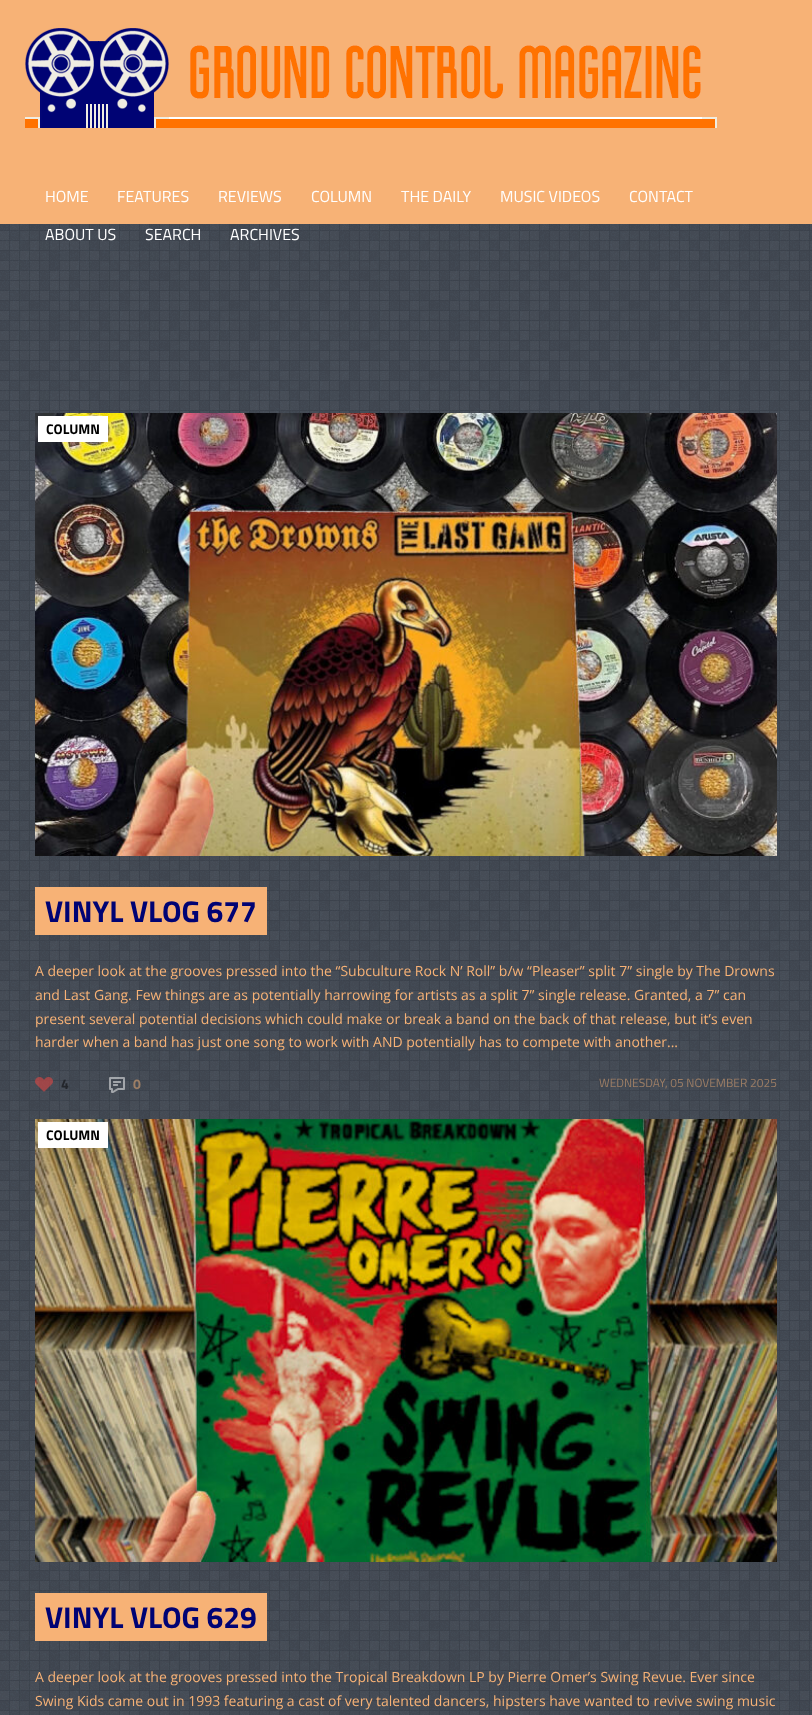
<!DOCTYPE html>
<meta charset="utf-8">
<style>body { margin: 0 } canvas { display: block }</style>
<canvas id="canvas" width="812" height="1715"></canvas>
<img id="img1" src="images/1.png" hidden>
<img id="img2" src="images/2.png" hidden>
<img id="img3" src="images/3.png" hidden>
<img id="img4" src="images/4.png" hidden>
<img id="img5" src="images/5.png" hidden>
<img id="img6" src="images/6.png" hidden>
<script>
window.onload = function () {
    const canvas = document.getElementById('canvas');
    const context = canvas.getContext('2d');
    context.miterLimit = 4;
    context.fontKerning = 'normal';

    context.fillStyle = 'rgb(255, 255, 255)';
    context.fillRect(0, 0, 812, 1715);
    context.drawImage(document.getElementById('img1'), 0, 224, 812, 1491);
    context.fillStyle = 'rgb(247, 178, 118)';
    context.fillRect(0, 0, 812, 224);
    context.drawImage(document.getElementById('img2'), 25, 28, 692, 100);
    context.drawImage(document.getElementById('img3'), 35, 413, 742, 443);
    context.fillStyle = 'rgb(255, 255, 255)';
    context.fillRect(38, 416, 70, 26);
    context.fillStyle = 'rgb(247, 178, 118)';
    context.fillRect(35, 887, 232, 48);
    context.drawImage(document.getElementById('img4'), 35, 1077, 18, 15);
    context.drawImage(document.getElementById('img5'), 109, 1077, 16, 16);
    context.drawImage(document.getElementById('img6'), 35, 1119, 742, 443);
    context.fillStyle = 'rgb(255, 255, 255)';
    context.fillRect(38, 1122, 70, 26);
    context.fillStyle = 'rgb(247, 178, 118)';
    context.fillRect(35, 1593, 232, 48);
    context.font = '16px Titillium Web';
    context.fillStyle = 'rgb(255, 255, 255)';
    context.fillText('HOME', 45, 202);
    context.fillText('FEATURES', 117, 202);
    context.fillText('REVIEWS', 218, 202);
    context.fillText('COLUMN', 311, 202);
    context.fillText('THE DAILY', 401, 202);
    context.fillText('MUSIC VIDEOS', 500, 202);
    context.fillText('CONTACT', 629, 202);
    context.fillText('ABOUT US', 45, 240);
    context.fillText('SEARCH', 145, 240);
    context.fillText('ARCHIVES', 230, 240);
    context.font = 'bold 14px Titillium Web';
    context.fillStyle = 'rgb(0, 0, 0)';
    context.fillText('COLUMN', 46, 434);
    context.font = 'bold 30px Titillium Web';
    context.fillStyle = 'rgb(0, 3, 116)';
    context.fillText('VINYL VLOG 677', 45, 922);
    context.font = '14px Open Sans';
    context.fillStyle = 'rgb(247, 178, 118)';
    context.fillText('A deeper look at the grooves pressed into the “Subculture Rock N’ Roll” b/w “Pleaser” split 7” single by The Drowns', 35, 976);
    context.fillText('and Last Gang. Few things are as potentially harrowing for artists as a split 7” single release. Granted, a 7” can', 35, 1000);
    context.fillText('present several potential decisions which could make or break a band on the back of that release, but it’s even', 35, 1024);
    context.fillText('harder when a band has just one song to work with AND potentially has to compete with another...', 35, 1047);
    context.font = 'bold 14px Titillium Web';
    context.fillStyle = 'rgb(35, 38, 43)';
    context.fillText('4', 61, 1089);
    context.fillStyle = 'rgb(157, 126, 101)';
    context.fillText('0', 133, 1089);
    context.font = '12px Titillium Web';
    context.fillText('WEDNESDAY, 05 NOVEMBER 2025', 599, 1087);
    context.font = 'bold 14px Titillium Web';
    context.fillStyle = 'rgb(0, 0, 0)';
    context.fillText('COLUMN', 46, 1140);
    context.font = 'bold 30px Titillium Web';
    context.fillStyle = 'rgb(0, 3, 116)';
    context.fillText('VINYL VLOG 629', 45, 1628);
    context.font = '14px Open Sans';
    context.fillStyle = 'rgb(247, 178, 118)';
    context.fillText('A deeper look at the grooves pressed into the Tropical Breakdown LP by Pierre Omer’s Swing Revue. Ever since', 35, 1682);
    context.fillText('Swing Kids came out in 1993 featuring a cast of very talented dancers, hipsters have wanted to revive swing music', 35, 1706);
};
</script>
